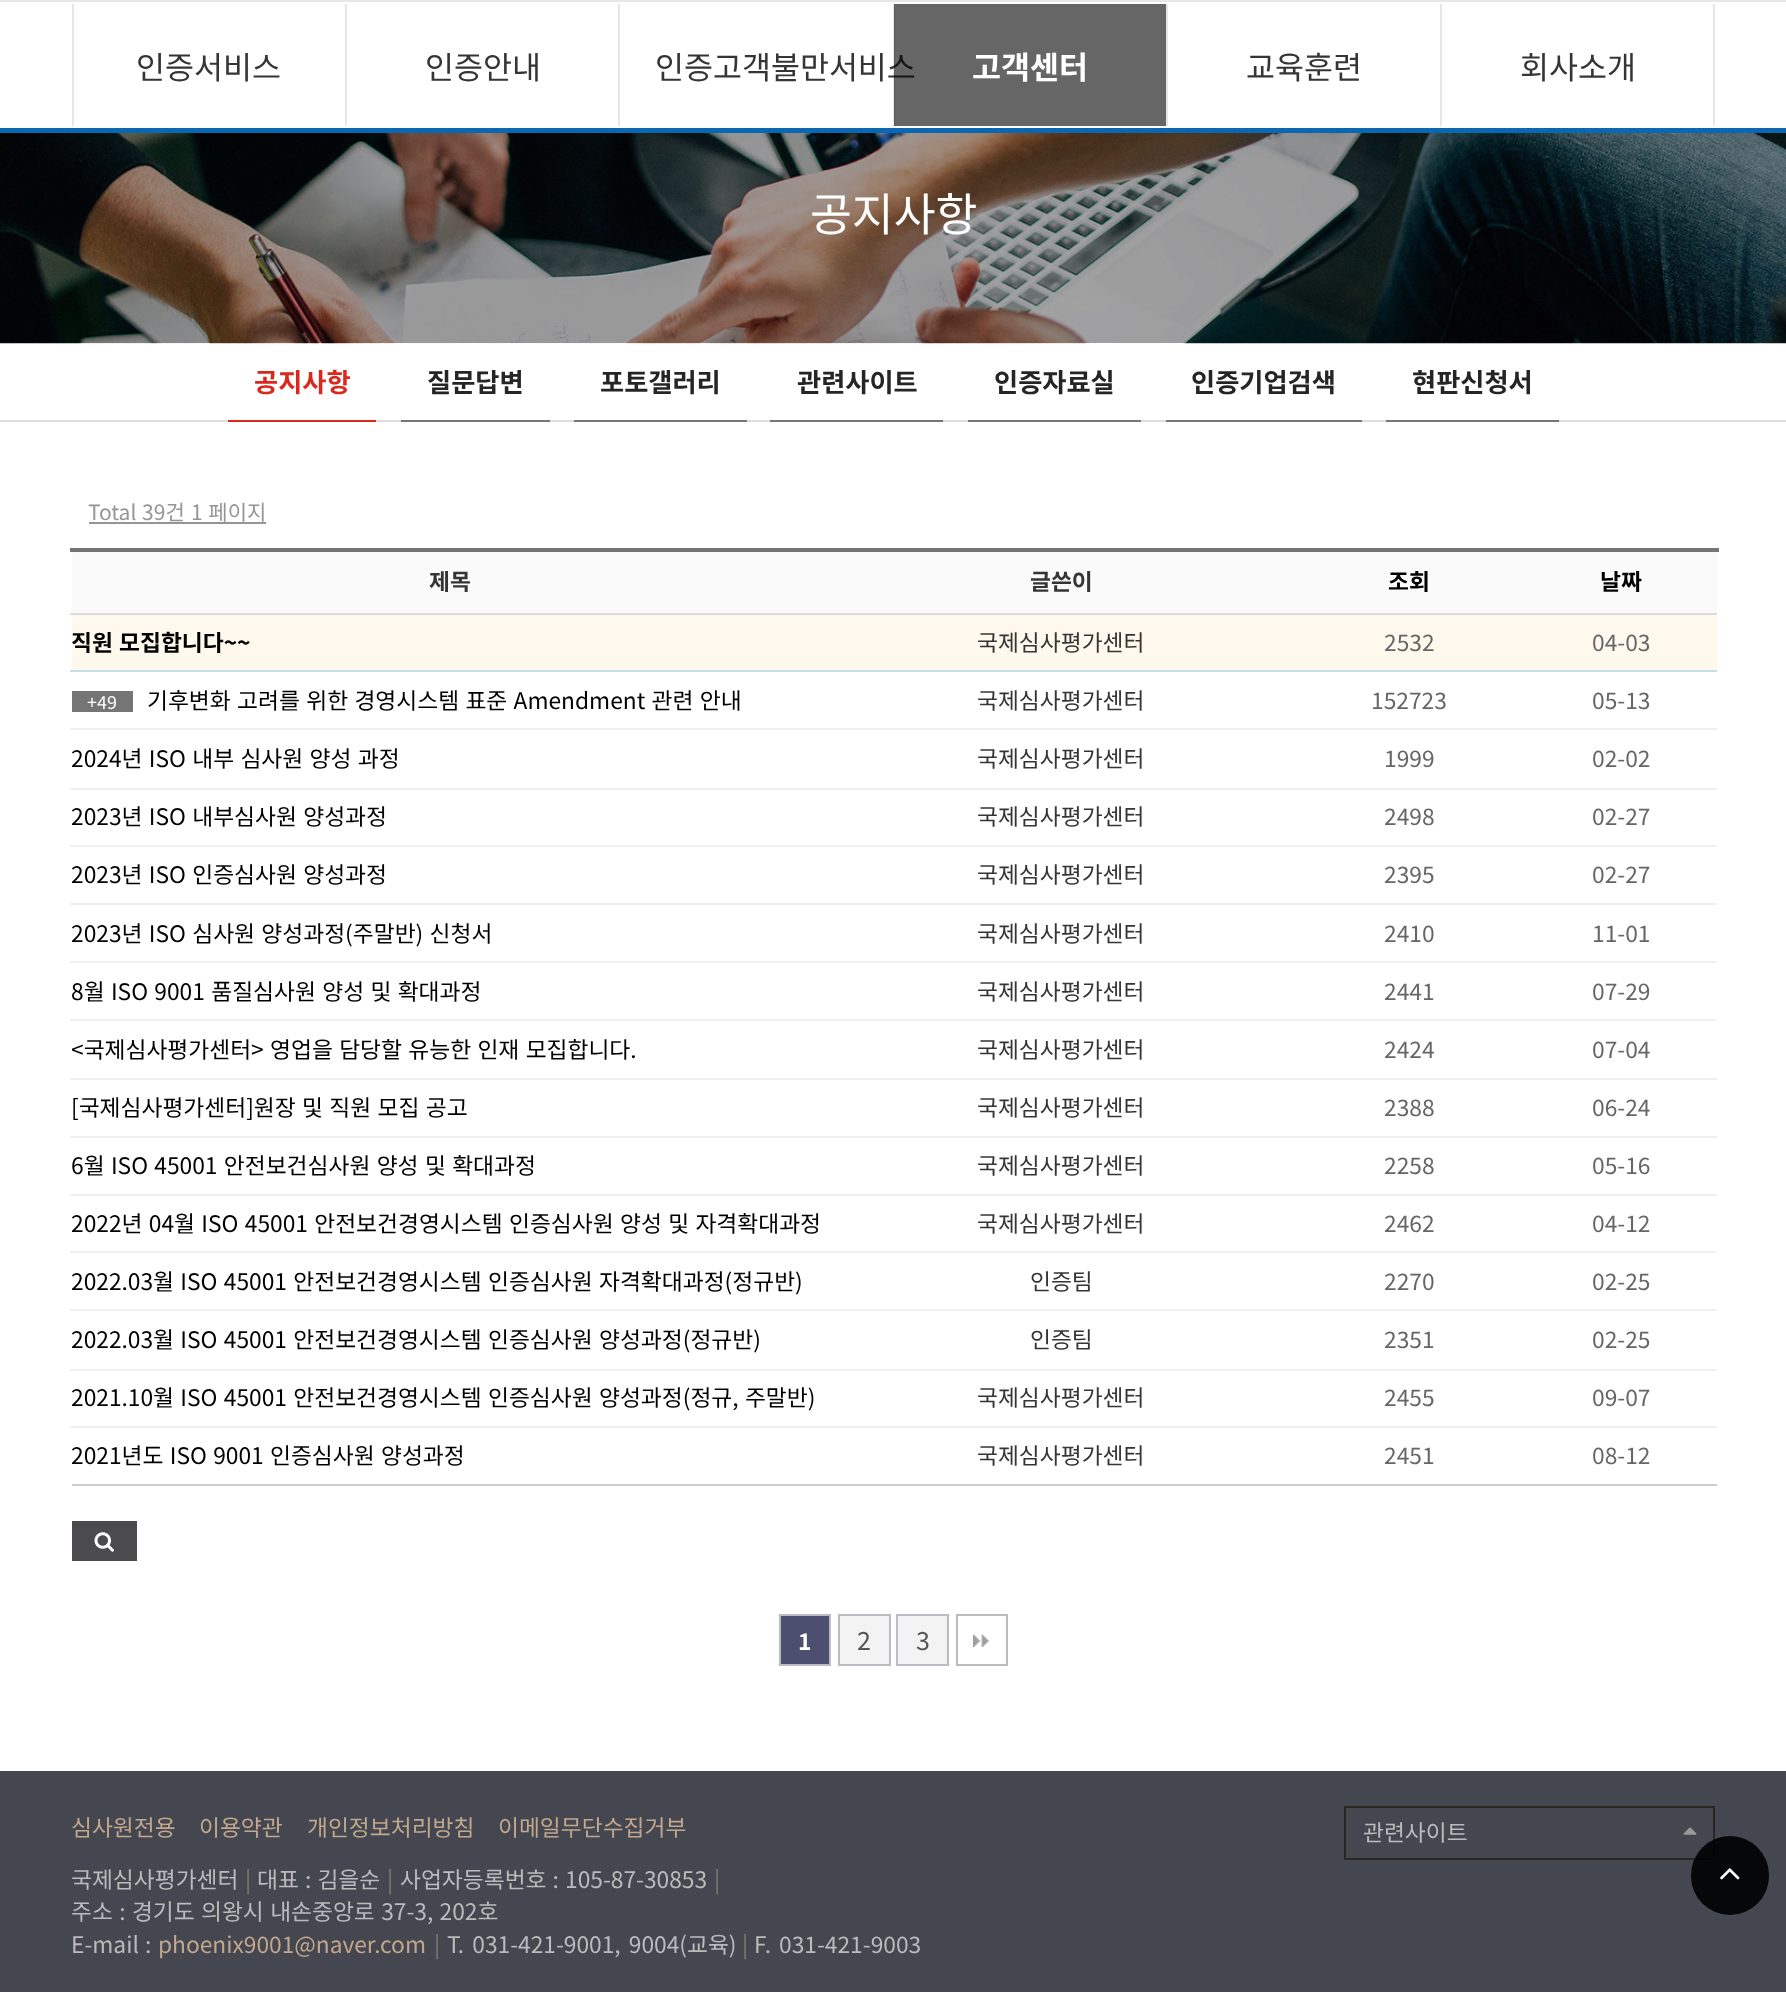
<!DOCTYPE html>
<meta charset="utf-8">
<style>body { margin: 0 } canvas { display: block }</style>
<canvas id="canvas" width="1786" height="1992"></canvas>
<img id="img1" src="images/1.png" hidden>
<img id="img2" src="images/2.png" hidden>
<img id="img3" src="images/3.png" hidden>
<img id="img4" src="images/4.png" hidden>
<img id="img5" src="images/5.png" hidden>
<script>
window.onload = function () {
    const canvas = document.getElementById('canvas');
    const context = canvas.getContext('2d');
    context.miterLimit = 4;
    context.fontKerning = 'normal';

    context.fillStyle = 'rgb(255, 255, 255)';
    context.fillRect(0, 0, 1786, 1992);
    context.fillStyle = 'rgb(230, 230, 230)';
    context.fillRect(0, 0, 1786, 2);
    context.fillStyle = 'rgb(11, 103, 178)';
    context.fillRect(0, 128, 1786, 5);
    context.fillStyle = 'rgb(230, 230, 230)';
    context.fillRect(72, 4, 2, 122);
    context.fillRect(345, 4, 2, 122);
    context.fillRect(618, 4, 2, 122);
    context.fillRect(893, 4, 2, 122);
    context.fillRect(1166, 4, 2, 122);
    context.fillRect(1440, 4, 2, 122);
    context.fillRect(1713, 4, 2, 122);
    context.drawImage(document.getElementById('img1'), 0, 133, 1786, 211);
    context.fillStyle = 'rgb(221, 221, 221)';
    context.fillRect(0, 420, 1786, 2);
    context.fillStyle = 'rgb(218, 41, 28)';
    context.fillRect(228, 420, 148, 2);
    context.fillStyle = 'rgb(119, 119, 119)';
    context.fillRect(401, 420, 149, 2);
    context.fillRect(574, 420, 173, 2);
    context.fillRect(770, 420, 173, 2);
    context.fillRect(968, 420, 173, 2);
    context.fillRect(1166, 420, 196, 2);
    context.fillRect(1386, 420, 173, 2);
    context.fillStyle = 'rgb(149, 149, 149)';
    context.fillRect(89, 522, 177, 2);
    context.fillStyle = 'rgb(204, 204, 204)';
    context.fillRect(72, 1484, 1645, 2);
    context.fillStyle = 'rgb(117, 117, 117)';
    context.fillRect(70, 548, 1649, 4);
    context.fillStyle = 'rgb(250, 250, 250)';
    context.fillRect(72, 552, 1645, 61);
    context.fillStyle = 'rgb(221, 221, 221)';
    context.fillRect(70, 613, 1647, 2);
    context.fillStyle = 'rgb(255, 248, 236)';
    context.fillRect(72, 615, 1645, 55);
    context.fillStyle = 'rgb(195, 223, 232)';
    context.fillRect(70, 670, 1647, 2);
    context.fillStyle = 'rgb(117, 117, 117)';
    context.fillRect(72, 691, 61, 21);
    context.fillStyle = 'rgb(236, 240, 241)';
    context.fillRect(70, 728, 1647, 2);
    context.fillRect(70, 788, 1647, 2);
    context.fillRect(70, 845, 1647, 2);
    context.fillRect(70, 903, 1647, 2);
    context.fillRect(70, 961, 1647, 2);
    context.fillRect(70, 1019, 1647, 2);
    context.fillRect(70, 1078, 1647, 2);
    context.fillRect(70, 1136, 1647, 2);
    context.fillRect(70, 1194, 1647, 2);
    context.fillRect(70, 1251, 1647, 2);
    context.fillRect(70, 1309, 1647, 2);
    context.fillRect(70, 1369, 1647, 2);
    context.fillRect(70, 1426, 1647, 2);
    context.fillStyle = 'rgb(75, 75, 77)';
    context.fillRect(72, 1521, 65, 40);
    context.drawImage(document.getElementById('img2'), 94, 1532, 20, 20);
    context.fillStyle = 'rgb(76, 79, 111)';
    context.beginPath();
    context.rect(780, 1615, 50, 50);
    context.fill();
    context.strokeStyle = 'rgb(187, 188, 195)';
    context.lineWidth = 2;
    context.stroke();
    context.fillStyle = 'rgb(243, 243, 243)';
    context.beginPath();
    context.rect(839, 1615, 51, 50);
    context.fill();
    context.stroke();
    context.beginPath();
    context.rect(897, 1615, 51, 50);
    context.fill();
    context.stroke();
    context.drawImage(document.getElementById('img3'), 973, 1634, 16, 13);
    context.strokeStyle = 'rgb(187, 187, 187)';
    context.strokeRect(957, 1615, 50, 50);
    context.fillStyle = 'rgb(68, 70, 80)';
    context.fillRect(0, 1771, 1786, 221);
    context.strokeStyle = 'rgb(42, 39, 34)';
    context.strokeRect(1345, 1807, 369, 52);
    context.drawImage(document.getElementById('img4'), 1683, 1827, 14, 8);
    context.fillStyle = 'rgba(0, 0, 0, 0.9)';
    context.beginPath();
    context.roundRect(1691, 1836, 78, 79, 39);
    context.fill();
    context.drawImage(document.getElementById('img5'), 1720, 1868, 20, 12);
    context.font = '31.5px Noto Sans KR';
    context.fillStyle = 'rgb(53, 53, 53)';
    context.fillText('인증서비스', 136, 79);
    context.fillText('인증안내', 425, 79);
    context.fillText('인증고객불만서비스', 655, 79);
    context.fillStyle = 'rgba(0, 0, 0, 0.6)';
    context.fillRect(894, 4, 272, 122);
    context.font = 'bold 31.5px Noto Sans KR';
    context.fillStyle = 'rgb(255, 255, 255)';
    context.fillText('고객센터', 972, 79);
    context.font = '31.5px Noto Sans KR';
    context.fillStyle = 'rgb(53, 53, 53)';
    context.fillText('교육훈련', 1246, 79);
    context.fillText('회사소개', 1520, 79);
    context.font = '45.5px Noto Sans KR';
    context.fillStyle = 'rgb(255, 255, 255)';
    context.fillText('공지사항', 810, 231);
    context.font = 'bold 26.25px Noto Sans KR';
    context.fillStyle = 'rgb(218, 41, 28)';
    context.fillText('공지사항', 254, 392);
    context.fillStyle = 'rgb(37, 37, 37)';
    context.fillText('질문답변', 427, 392);
    context.fillText('포토갤러리', 600, 392);
    context.fillText('관련사이트', 797, 392);
    context.fillText('인증자료실', 994, 392);
    context.fillText('인증기업검색', 1191, 392);
    context.fillText('현판신청서', 1412, 392);
    context.wordSpacing = '1px';
    context.font = '21px Noto Sans KR';
    context.fillStyle = 'rgb(149, 149, 149)';
    context.fillText('Total 39건', 88, 520);
    context.fillText('1 페이지', 191, 520);
    context.wordSpacing = '0px';
    context.font = 'bold 22.75px Noto Sans KR';
    context.fillStyle = 'rgb(53, 53, 53)';
    context.fillText('제목', 429, 590);
    context.fillText('글쓴이', 1030, 590);
    context.fillStyle = 'rgb(0, 0, 0)';
    context.fillText('조회', 1388, 590);
    context.fillText('날짜', 1600, 590);
    context.wordSpacing = '1px';
    context.fillText('직원 모집합니다~~', 71, 651);
    context.wordSpacing = '0px';
    context.font = '22.75px Noto Sans KR';
    context.fillStyle = 'rgb(53, 53, 53)';
    context.fillText('국제심사평가센터', 977, 651);
    context.fillStyle = 'rgb(102, 102, 102)';
    context.fillText('2532', 1384, 651);
    context.fillText('04-03', 1592, 651);
    context.font = '18px Noto Sans KR';
    context.fillStyle = 'rgb(255, 255, 255)';
    context.fillText('+49', 87, 709);
    context.wordSpacing = '1.25px';
    context.font = '22.75px Noto Sans KR';
    context.fillStyle = 'rgb(0, 0, 0)';
    context.fillText('기후변화 고려를 위한 경영시스템 표준 Amendment 관련 안내', 147, 709);
    context.wordSpacing = '0px';
    context.fillStyle = 'rgb(53, 53, 53)';
    context.fillText('국제심사평가센터', 977, 709);
    context.fillStyle = 'rgb(102, 102, 102)';
    context.fillText('152723', 1371, 709);
    context.fillText('05-13', 1592, 709);
    context.wordSpacing = '1.25px';
    context.fillStyle = 'rgb(0, 0, 0)';
    context.fillText('2024년 ISO 내부 심사원 양성 과정', 71, 767);
    context.wordSpacing = '0px';
    context.fillStyle = 'rgb(53, 53, 53)';
    context.fillText('국제심사평가센터', 977, 767);
    context.fillStyle = 'rgb(102, 102, 102)';
    context.fillText('1999', 1384, 767);
    context.fillText('02-02', 1592, 767);
    context.wordSpacing = '1.25px';
    context.fillStyle = 'rgb(0, 0, 0)';
    context.fillText('2023년 ISO 내부심사원 양성과정', 71, 825);
    context.wordSpacing = '0px';
    context.fillStyle = 'rgb(53, 53, 53)';
    context.fillText('국제심사평가센터', 977, 825);
    context.fillStyle = 'rgb(102, 102, 102)';
    context.fillText('2498', 1384, 825);
    context.fillText('02-27', 1592, 825);
    context.wordSpacing = '1.25px';
    context.fillStyle = 'rgb(0, 0, 0)';
    context.fillText('2023년 ISO 인증심사원 양성과정', 71, 883);
    context.wordSpacing = '0px';
    context.fillStyle = 'rgb(53, 53, 53)';
    context.fillText('국제심사평가센터', 977, 883);
    context.fillStyle = 'rgb(102, 102, 102)';
    context.fillText('2395', 1384, 883);
    context.fillText('02-27', 1592, 883);
    context.wordSpacing = '1.25px';
    context.fillStyle = 'rgb(0, 0, 0)';
    context.fillText('2023년 ISO 심사원 양성과정(주말반) 신청서', 71, 942);
    context.wordSpacing = '0px';
    context.fillStyle = 'rgb(53, 53, 53)';
    context.fillText('국제심사평가센터', 977, 942);
    context.fillStyle = 'rgb(102, 102, 102)';
    context.fillText('2410', 1384, 942);
    context.fillText('11-01', 1592, 942);
    context.wordSpacing = '1.25px';
    context.fillStyle = 'rgb(0, 0, 0)';
    context.fillText('8월 ISO 9001 품질심사원 양성 및 확대과정', 71, 1000);
    context.wordSpacing = '0px';
    context.fillStyle = 'rgb(53, 53, 53)';
    context.fillText('국제심사평가센터', 977, 1000);
    context.fillStyle = 'rgb(102, 102, 102)';
    context.fillText('2441', 1384, 1000);
    context.fillText('07-29', 1592, 1000);
    context.save();
    context.beginPath();
    context.rect(72, 1033, 749, 33);
    context.clip();
    context.wordSpacing = '1.25px';
    context.fillStyle = 'rgb(0, 0, 0)';
    context.fillText('<국제심사평가센터> 영업을 담당할 유능한 인재 모집합니다.', 71, 1058);
    context.restore();
    context.fillStyle = 'rgb(53, 53, 53)';
    context.fillText('국제심사평가센터', 977, 1058);
    context.fillStyle = 'rgb(102, 102, 102)';
    context.fillText('2424', 1384, 1058);
    context.fillText('07-04', 1592, 1058);
    context.wordSpacing = '1.25px';
    context.fillStyle = 'rgb(0, 0, 0)';
    context.fillText('[국제심사평가센터]원장 및 직원 모집 공고', 71, 1116);
    context.wordSpacing = '0px';
    context.fillStyle = 'rgb(53, 53, 53)';
    context.fillText('국제심사평가센터', 977, 1116);
    context.fillStyle = 'rgb(102, 102, 102)';
    context.fillText('2388', 1384, 1116);
    context.fillText('06-24', 1592, 1116);
    context.wordSpacing = '1.25px';
    context.fillStyle = 'rgb(0, 0, 0)';
    context.fillText('6월 ISO 45001 안전보건심사원 양성 및 확대과정', 71, 1174);
    context.wordSpacing = '0px';
    context.fillStyle = 'rgb(53, 53, 53)';
    context.fillText('국제심사평가센터', 977, 1174);
    context.fillStyle = 'rgb(102, 102, 102)';
    context.fillText('2258', 1384, 1174);
    context.fillText('05-16', 1592, 1174);
    context.wordSpacing = '1.25px';
    context.fillStyle = 'rgb(0, 0, 0)';
    context.fillText('2022년 04월 ISO 45001 안전보건경영시스템 인증심사원 양성 및 자격확대과정', 71, 1232);
    context.wordSpacing = '0px';
    context.fillStyle = 'rgb(53, 53, 53)';
    context.fillText('국제심사평가센터', 977, 1232);
    context.fillStyle = 'rgb(102, 102, 102)';
    context.fillText('2462', 1384, 1232);
    context.fillText('04-12', 1592, 1232);
    context.wordSpacing = '1.25px';
    context.fillStyle = 'rgb(0, 0, 0)';
    context.fillText('2022.03월 ISO 45001 안전보건경영시스템 인증심사원 자격확대과정(정규반)', 71, 1290);
    context.wordSpacing = '0px';
    context.fillStyle = 'rgb(53, 53, 53)';
    context.fillText('인증팀', 1030, 1290);
    context.fillStyle = 'rgb(102, 102, 102)';
    context.fillText('2270', 1384, 1290);
    context.fillText('02-25', 1592, 1290);
    context.wordSpacing = '1.25px';
    context.fillStyle = 'rgb(0, 0, 0)';
    context.fillText('2022.03월 ISO 45001 안전보건경영시스템 인증심사원 양성과정(정규반)', 71, 1348);
    context.wordSpacing = '0px';
    context.fillStyle = 'rgb(53, 53, 53)';
    context.fillText('인증팀', 1030, 1348);
    context.fillStyle = 'rgb(102, 102, 102)';
    context.fillText('2351', 1384, 1348);
    context.fillText('02-25', 1592, 1348);
    context.wordSpacing = '1.25px';
    context.fillStyle = 'rgb(0, 0, 0)';
    context.fillText('2021.10월 ISO 45001 안전보건경영시스템 인증심사원 양성과정(정규, 주말반)', 71, 1406);
    context.wordSpacing = '0px';
    context.fillStyle = 'rgb(53, 53, 53)';
    context.fillText('국제심사평가센터', 977, 1406);
    context.fillStyle = 'rgb(102, 102, 102)';
    context.fillText('2455', 1384, 1406);
    context.fillText('09-07', 1592, 1406);
    context.wordSpacing = '1.25px';
    context.fillStyle = 'rgb(0, 0, 0)';
    context.fillText('2021년도 ISO 9001 인증심사원 양성과정', 71, 1464);
    context.wordSpacing = '0px';
    context.fillStyle = 'rgb(53, 53, 53)';
    context.fillText('국제심사평가센터', 977, 1464);
    context.fillStyle = 'rgb(102, 102, 102)';
    context.fillText('2451', 1384, 1464);
    context.fillText('08-12', 1592, 1464);
    context.font = 'bold 22.75px Noto Sans KR';
    context.fillStyle = 'rgb(255, 255, 255)';
    context.fillText('1', 798, 1650);
    context.font = '25px Noto Sans KR';
    context.fillStyle = 'rgb(85, 85, 85)';
    context.fillText('2', 857, 1650);
    context.fillText('3', 916, 1650);
    context.font = '22.75px Noto Sans KR';
    context.fillStyle = 'rgb(193, 167, 140)';
    context.fillText('심사원전용', 71, 1836);
    context.fillText('이용약관', 199, 1836);
    context.fillText('개인정보처리방침', 307, 1836);
    context.fillText('이메일무단수집거부', 498, 1836);
    context.fillStyle = 'rgb(187, 187, 187)';
    context.fillText('국제심사평가센터', 71, 1888);
    context.fillStyle = 'rgb(130, 121, 109)';
    context.fillText('|', 245, 1888);
    context.wordSpacing = '1px';
    context.fillStyle = 'rgb(187, 187, 187)';
    context.fillText('대표 : 김을순', 257, 1888);
    context.wordSpacing = '0px';
    context.fillStyle = 'rgb(130, 121, 109)';
    context.fillText('|', 387, 1888);
    context.wordSpacing = '1px';
    context.fillStyle = 'rgb(187, 187, 187)';
    context.fillText('사업자등록번호 : 105-87-30853', 400, 1888);
    context.wordSpacing = '0px';
    context.fillStyle = 'rgb(130, 121, 109)';
    context.fillText('|', 714, 1888);
    context.wordSpacing = '1.25px';
    context.fillStyle = 'rgb(187, 187, 187)';
    context.fillText('주소 : 경기도 의왕시 내손중앙로 37-3, 202호', 71, 1920);
    context.wordSpacing = '1px';
    context.fillText('E-mail :', 71, 1953);
    context.wordSpacing = '0px';
    context.fillStyle = 'rgb(193, 167, 140)';
    context.fillText('phoenix9001@naver.com', 158, 1953);
    context.fillStyle = 'rgb(130, 121, 109)';
    context.fillText('|', 434, 1953);
    context.wordSpacing = '3px';
    context.fillStyle = 'rgb(187, 187, 187)';
    context.fillText('T. 031-421-9001, 9004(교육)', 447, 1953);
    context.wordSpacing = '0px';
    context.fillStyle = 'rgb(130, 121, 109)';
    context.fillText('|', 742, 1953);
    context.wordSpacing = '3px';
    context.fillStyle = 'rgb(187, 187, 187)';
    context.fillText('F. 031-421-9003', 754, 1953);
    context.wordSpacing = '0px';
    context.fillText('관련사이트', 1363, 1841);
};
</script>
